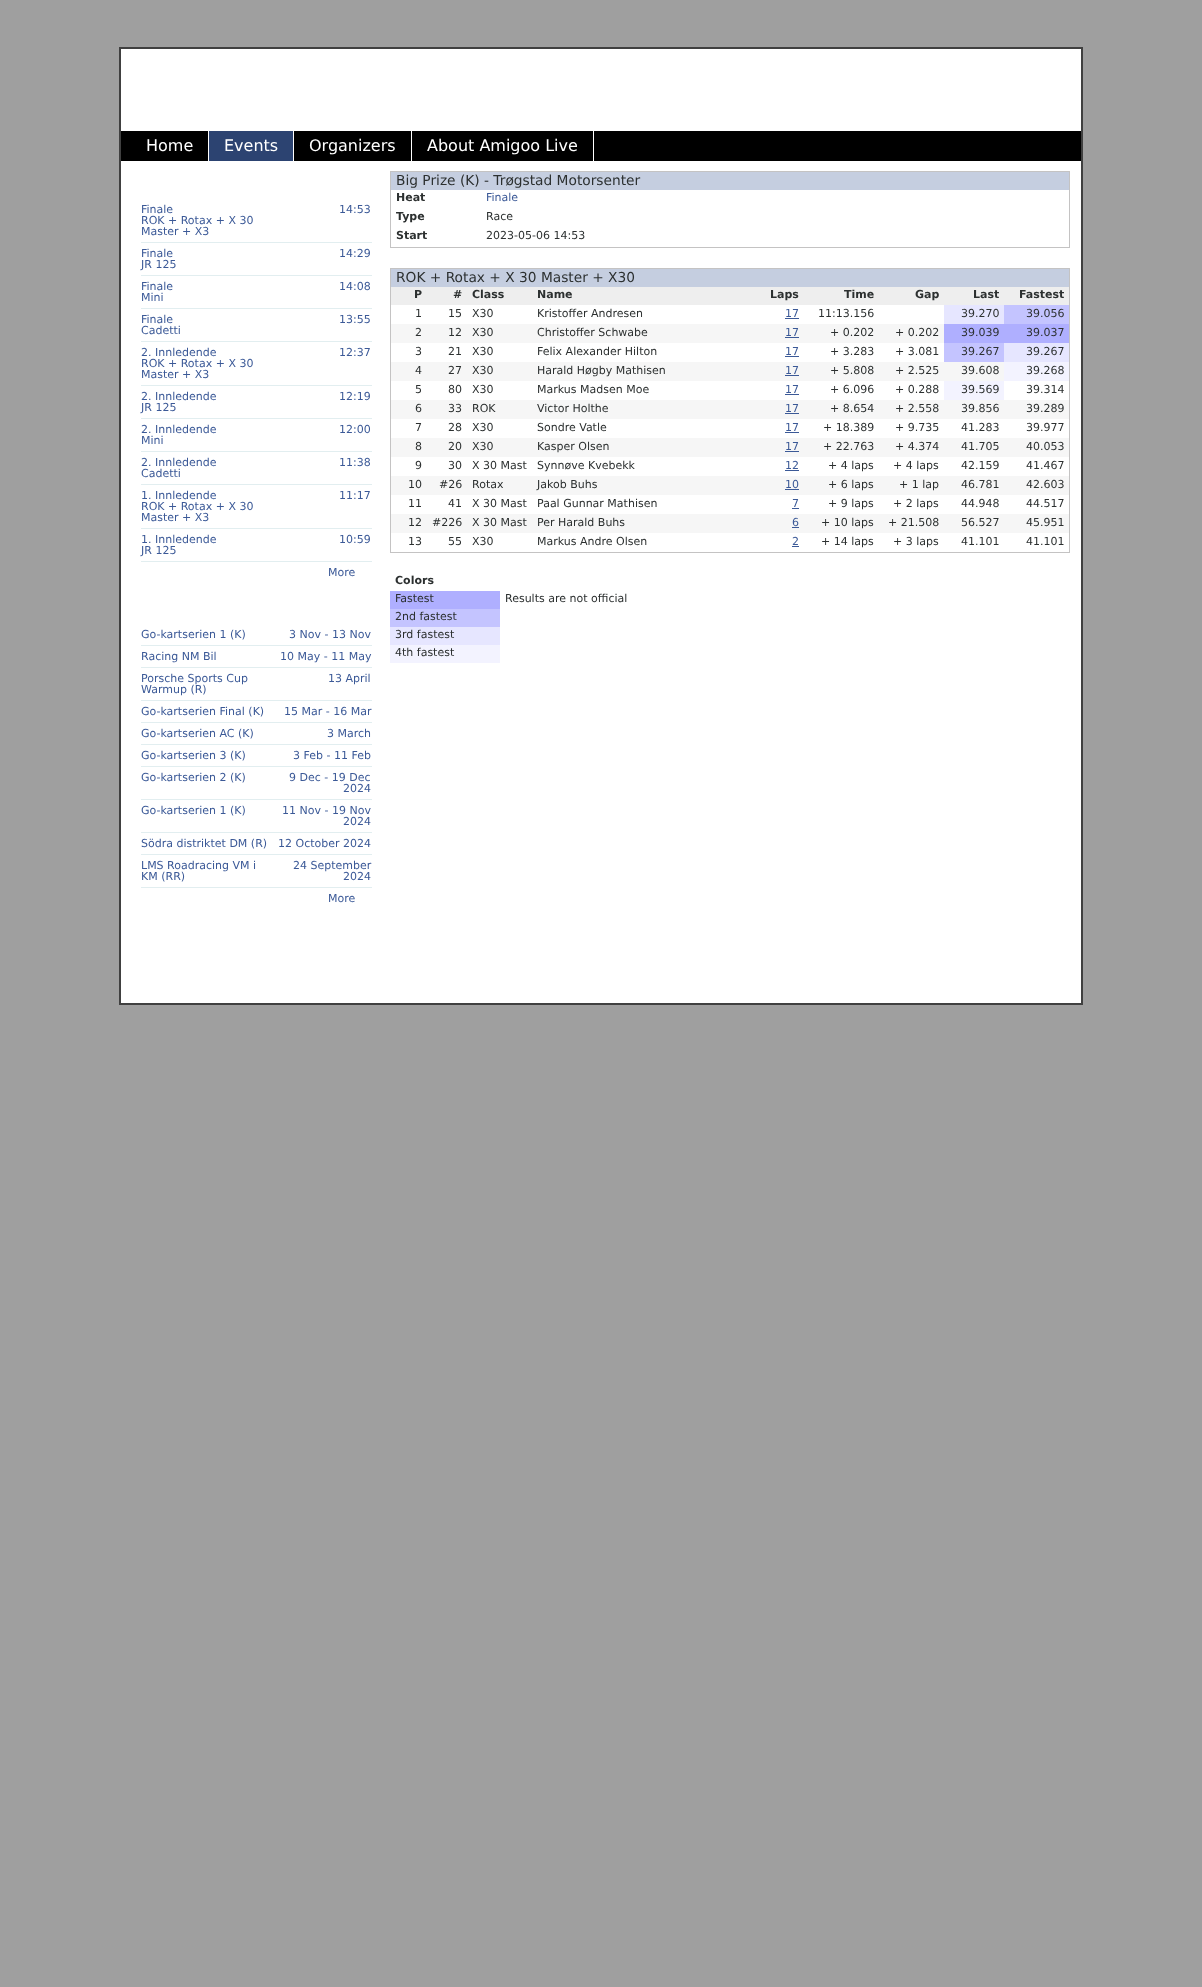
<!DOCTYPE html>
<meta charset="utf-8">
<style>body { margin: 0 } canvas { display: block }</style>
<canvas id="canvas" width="1202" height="1987"></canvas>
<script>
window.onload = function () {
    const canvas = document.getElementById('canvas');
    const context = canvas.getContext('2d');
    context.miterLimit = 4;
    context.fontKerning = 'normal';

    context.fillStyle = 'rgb(159, 159, 159)';
    context.fillRect(0, 0, 1202, 1987);
    context.fillStyle = 'rgb(255, 255, 255)';
    context.fillRect(121, 49, 960, 954);
    context.fillStyle = 'rgb(64, 64, 64)';
    context.fillRect(119, 47, 964, 2);
    context.fillRect(1081, 47, 2, 114);
    context.fillRect(119, 47, 2, 114);
    context.fillStyle = 'rgb(0, 0, 0)';
    context.fillRect(121, 131, 960, 30);
    context.fillStyle = 'rgb(255, 255, 255)';
    context.fillRect(208, 131, 1, 30);
    context.fillStyle = 'rgb(44, 67, 113)';
    context.fillRect(209, 131, 84, 30);
    context.fillStyle = 'rgb(255, 255, 255)';
    context.fillRect(293, 131, 1, 30);
    context.fillRect(411, 131, 1, 30);
    context.fillRect(593, 131, 1, 30);
    context.fillStyle = 'rgb(64, 64, 64)';
    context.fillRect(1081, 161, 2, 844);
    context.fillRect(119, 161, 2, 802);
    context.fillStyle = 'rgb(226, 238, 240)';
    context.fillRect(141, 242, 231, 1);
    context.fillRect(141, 275, 231, 1);
    context.fillRect(141, 308, 231, 1);
    context.fillRect(141, 341, 231, 1);
    context.fillRect(141, 385, 231, 1);
    context.fillRect(141, 418, 231, 1);
    context.fillRect(141, 451, 231, 1);
    context.fillRect(141, 484, 231, 1);
    context.fillRect(141, 528, 231, 1);
    context.fillRect(141, 561, 231, 1);
    context.fillRect(141, 645, 231, 1);
    context.fillRect(141, 667, 231, 1);
    context.fillRect(141, 700, 231, 1);
    context.fillRect(141, 722, 231, 1);
    context.fillRect(141, 744, 231, 1);
    context.fillRect(141, 766, 231, 1);
    context.fillRect(141, 799, 231, 1);
    context.fillRect(141, 832, 231, 1);
    context.fillRect(141, 854, 231, 1);
    context.fillRect(141, 887, 231, 1);
    context.strokeStyle = 'rgb(196, 195, 195)';
    context.strokeRect(390.5, 171.5, 679, 76);
    context.fillStyle = 'rgb(197, 206, 224)';
    context.fillRect(391, 172, 678, 18);
    context.strokeRect(390.5, 268.5, 679, 284);
    context.fillRect(391, 269, 678, 18);
    context.fillStyle = 'rgb(238, 238, 238)';
    context.fillRect(391, 287, 76, 18);
    context.fillRect(467, 287, 65, 18);
    context.fillRect(532, 287, 537, 18);
    context.fillStyle = 'rgb(59, 89, 151)';
    context.fillRect(785, 318, 14, 1);
    context.fillStyle = 'rgb(230, 230, 255)';
    context.fillRect(944, 305, 60, 19);
    context.fillStyle = 'rgb(196, 196, 255)';
    context.fillRect(1004, 305, 65, 19);
    context.fillStyle = 'rgb(246, 246, 246)';
    context.fillRect(391, 324, 553, 19);
    context.fillStyle = 'rgb(59, 89, 151)';
    context.fillRect(785, 337, 14, 1);
    context.fillStyle = 'rgb(175, 175, 255)';
    context.fillRect(944, 324, 125, 19);
    context.fillStyle = 'rgb(59, 89, 151)';
    context.fillRect(785, 356, 14, 1);
    context.fillStyle = 'rgb(196, 196, 255)';
    context.fillRect(944, 343, 60, 19);
    context.fillStyle = 'rgb(230, 230, 255)';
    context.fillRect(1004, 343, 65, 19);
    context.fillStyle = 'rgb(246, 246, 246)';
    context.fillRect(391, 362, 613, 19);
    context.fillStyle = 'rgb(59, 89, 151)';
    context.fillRect(785, 375, 14, 1);
    context.fillStyle = 'rgb(243, 243, 255)';
    context.fillRect(1004, 362, 65, 19);
    context.fillStyle = 'rgb(59, 89, 151)';
    context.fillRect(785, 394, 14, 1);
    context.fillStyle = 'rgb(243, 243, 255)';
    context.fillRect(944, 381, 60, 19);
    context.fillStyle = 'rgb(246, 246, 246)';
    context.fillRect(391, 400, 678, 19);
    context.fillStyle = 'rgb(59, 89, 151)';
    context.fillRect(785, 413, 14, 1);
    context.fillRect(785, 432, 14, 1);
    context.fillStyle = 'rgb(246, 246, 246)';
    context.fillRect(391, 438, 678, 19);
    context.fillStyle = 'rgb(59, 89, 151)';
    context.fillRect(785, 451, 14, 1);
    context.fillRect(785, 470, 14, 1);
    context.fillStyle = 'rgb(246, 246, 246)';
    context.fillRect(391, 476, 678, 19);
    context.fillStyle = 'rgb(59, 89, 151)';
    context.fillRect(785, 489, 14, 1);
    context.fillRect(792, 508, 7, 1);
    context.fillStyle = 'rgb(246, 246, 246)';
    context.fillRect(391, 514, 678, 19);
    context.fillStyle = 'rgb(59, 89, 151)';
    context.fillRect(792, 527, 7, 1);
    context.fillRect(792, 546, 7, 1);
    context.fillStyle = 'rgb(175, 175, 255)';
    context.fillRect(390, 591, 110, 18);
    context.fillStyle = 'rgb(196, 196, 255)';
    context.fillRect(390, 609, 110, 18);
    context.fillStyle = 'rgb(230, 230, 255)';
    context.fillRect(390, 627, 110, 18);
    context.fillStyle = 'rgb(243, 243, 255)';
    context.fillRect(390, 645, 110, 18);
    context.fillStyle = 'rgb(64, 64, 64)';
    context.fillRect(119, 1003, 964, 2);
    context.fillRect(119, 963, 2, 42);
    context.font = '16px DejaVu Sans';
    context.fillStyle = 'rgb(255, 255, 255)';
    context.fillText('Home', 146, 151);
    context.fillText('Events', 224, 151);
    context.fillText('Organizers', 309, 151);
    context.fillText('About Amigoo Live', 427, 151);
    context.font = '11px DejaVu Sans';
    context.fillStyle = 'rgb(59, 89, 151)';
    context.fillText('Finale', 141, 213);
    context.fillText('ROK + Rotax + X 30', 141, 224);
    context.fillText('Master + X3', 141, 235);
    context.fillText('14:53', 339, 213);
    context.fillText('Finale', 141, 257);
    context.fillText('JR 125', 141, 268);
    context.fillText('14:29', 339, 257);
    context.fillText('Finale', 141, 290);
    context.fillText('Mini', 141, 301);
    context.fillText('14:08', 339, 290);
    context.fillText('Finale', 141, 323);
    context.fillText('Cadetti', 141, 334);
    context.fillText('13:55', 339, 323);
    context.fillText('2. Innledende', 141, 356);
    context.fillText('ROK + Rotax + X 30', 141, 367);
    context.fillText('Master + X3', 141, 378);
    context.fillText('12:37', 339, 356);
    context.fillText('2. Innledende', 141, 400);
    context.fillText('JR 125', 141, 411);
    context.fillText('12:19', 339, 400);
    context.fillText('2. Innledende', 141, 433);
    context.fillText('Mini', 141, 444);
    context.fillText('12:00', 339, 433);
    context.fillText('2. Innledende', 141, 466);
    context.fillText('Cadetti', 141, 477);
    context.fillText('11:38', 339, 466);
    context.fillText('1. Innledende', 141, 499);
    context.fillText('ROK + Rotax + X 30', 141, 510);
    context.fillText('Master + X3', 141, 521);
    context.fillText('11:17', 339, 499);
    context.fillText('1. Innledende', 141, 543);
    context.fillText('JR 125', 141, 554);
    context.fillText('10:59', 339, 543);
    context.fillText('More', 328, 576);
    context.fillText('Go-kartserien 1 (K)', 141, 638);
    context.fillText('3 Nov - 13 Nov', 289, 638);
    context.fillText('Racing NM Bil', 141, 660);
    context.fillText('10 May - 11 May', 280, 660);
    context.fillText('Porsche Sports Cup', 141, 682);
    context.fillText('Warmup (R)', 141, 693);
    context.fillText('13 April', 328, 682);
    context.fillText('Go-kartserien Final (K)', 141, 715);
    context.fillText('15 Mar - 16 Mar', 284, 715);
    context.fillText('Go-kartserien AC (K)', 141, 737);
    context.fillText('3 March', 327, 737);
    context.fillText('Go-kartserien 3 (K)', 141, 759);
    context.fillText('3 Feb - 11 Feb', 293, 759);
    context.fillText('Go-kartserien 2 (K)', 141, 781);
    context.fillText('9 Dec - 19 Dec', 289, 781);
    context.fillText('2024', 343, 792);
    context.fillText('Go-kartserien 1 (K)', 141, 814);
    context.fillText('11 Nov - 19 Nov', 282, 814);
    context.fillText('2024', 343, 825);
    context.fillText('Södra distriktet DM (R)', 141, 847);
    context.fillText('12 October 2024', 278, 847);
    context.fillText('LMS Roadracing VM i', 141, 869);
    context.fillText('KM (RR)', 141, 880);
    context.fillText('24 September', 293, 869);
    context.fillText('2024', 343, 880);
    context.fillText('More', 328, 902);
    context.font = '13.75px DejaVu Sans';
    context.fillStyle = 'rgb(44, 48, 48)';
    context.fillText('Big Prize (K) - Trøgstad Motorsenter', 396, 185);
    context.font = 'bold 11px DejaVu Sans';
    context.fillText('Heat', 396, 201);
    context.font = '11px DejaVu Sans';
    context.fillStyle = 'rgb(59, 89, 151)';
    context.fillText('Finale', 486, 201);
    context.font = 'bold 11px DejaVu Sans';
    context.fillStyle = 'rgb(44, 48, 48)';
    context.fillText('Type', 396, 220);
    context.font = '11px DejaVu Sans';
    context.fillText('Race', 486, 220);
    context.font = 'bold 11px DejaVu Sans';
    context.fillText('Start', 396, 239);
    context.font = '11px DejaVu Sans';
    context.fillText('2023-05-06 14:53', 486, 239);
    context.font = '13.75px DejaVu Sans';
    context.fillText('ROK + Rotax + X 30 Master + X30', 396, 282);
    context.font = 'bold 11px DejaVu Sans';
    context.fillText('Class', 472, 298);
    context.fillText('Time', 844, 298);
    context.fillText('Gap', 915, 298);
    context.fillText('P', 414, 298);
    context.fillText('#', 453, 298);
    context.fillText('Name', 537, 298);
    context.fillText('Laps', 770, 298);
    context.fillText('Last', 973, 298);
    context.fillText('Fastest', 1019, 298);
    context.font = '11px DejaVu Sans';
    context.fillText('1', 415, 317);
    context.fillText('15', 448, 317);
    context.fillText('X30', 472, 317);
    context.fillText('Kristoffer Andresen', 537, 317);
    context.fillStyle = 'rgb(59, 89, 151)';
    context.fillText('17', 785, 317);
    context.fillStyle = 'rgb(44, 48, 48)';
    context.fillText('11:13.156', 818, 317);
    context.fillText('39.270', 961, 317);
    context.fillText('39.056', 1026, 317);
    context.fillText('2', 415, 336);
    context.fillText('12', 448, 336);
    context.fillText('X30', 472, 336);
    context.fillText('Christoffer Schwabe', 537, 336);
    context.fillStyle = 'rgb(59, 89, 151)';
    context.fillText('17', 785, 336);
    context.fillStyle = 'rgb(44, 48, 48)';
    context.fillText('+ 0.202', 830, 336);
    context.fillText('+ 0.202', 895, 336);
    context.fillText('39.039', 961, 336);
    context.fillText('39.037', 1026, 336);
    context.fillText('3', 415, 355);
    context.fillText('21', 448, 355);
    context.fillText('X30', 472, 355);
    context.fillText('Felix Alexander Hilton', 537, 355);
    context.fillStyle = 'rgb(59, 89, 151)';
    context.fillText('17', 785, 355);
    context.fillStyle = 'rgb(44, 48, 48)';
    context.fillText('+ 3.283', 830, 355);
    context.fillText('+ 3.081', 895, 355);
    context.fillText('39.267', 961, 355);
    context.fillText('39.267', 1026, 355);
    context.fillText('4', 415, 374);
    context.fillText('27', 448, 374);
    context.fillText('X30', 472, 374);
    context.fillText('Harald Høgby Mathisen', 537, 374);
    context.fillStyle = 'rgb(59, 89, 151)';
    context.fillText('17', 785, 374);
    context.fillStyle = 'rgb(44, 48, 48)';
    context.fillText('+ 5.808', 830, 374);
    context.fillText('+ 2.525', 895, 374);
    context.fillText('39.608', 961, 374);
    context.fillText('39.268', 1026, 374);
    context.fillText('5', 415, 393);
    context.fillText('80', 448, 393);
    context.fillText('X30', 472, 393);
    context.fillText('Markus Madsen Moe', 537, 393);
    context.fillStyle = 'rgb(59, 89, 151)';
    context.fillText('17', 785, 393);
    context.fillStyle = 'rgb(44, 48, 48)';
    context.fillText('+ 6.096', 830, 393);
    context.fillText('+ 0.288', 895, 393);
    context.fillText('39.569', 961, 393);
    context.fillText('39.314', 1026, 393);
    context.fillText('6', 415, 412);
    context.fillText('33', 448, 412);
    context.fillText('ROK', 472, 412);
    context.fillText('Victor Holthe', 537, 412);
    context.fillStyle = 'rgb(59, 89, 151)';
    context.fillText('17', 785, 412);
    context.fillStyle = 'rgb(44, 48, 48)';
    context.fillText('+ 8.654', 830, 412);
    context.fillText('+ 2.558', 895, 412);
    context.fillText('39.856', 961, 412);
    context.fillText('39.289', 1026, 412);
    context.fillText('7', 415, 431);
    context.fillText('28', 448, 431);
    context.fillText('X30', 472, 431);
    context.fillText('Sondre Vatle', 537, 431);
    context.fillStyle = 'rgb(59, 89, 151)';
    context.fillText('17', 785, 431);
    context.fillStyle = 'rgb(44, 48, 48)';
    context.fillText('+ 18.389', 823, 431);
    context.fillText('+ 9.735', 895, 431);
    context.fillText('41.283', 961, 431);
    context.fillText('39.977', 1026, 431);
    context.fillText('8', 415, 450);
    context.fillText('20', 448, 450);
    context.fillText('X30', 472, 450);
    context.fillText('Kasper Olsen', 537, 450);
    context.fillStyle = 'rgb(59, 89, 151)';
    context.fillText('17', 785, 450);
    context.fillStyle = 'rgb(44, 48, 48)';
    context.fillText('+ 22.763', 823, 450);
    context.fillText('+ 4.374', 895, 450);
    context.fillText('41.705', 961, 450);
    context.fillText('40.053', 1026, 450);
    context.fillText('9', 415, 469);
    context.fillText('30', 448, 469);
    context.fillText('X 30 Mast', 472, 469);
    context.fillText('Synnøve Kvebekk', 537, 469);
    context.fillStyle = 'rgb(59, 89, 151)';
    context.fillText('12', 785, 469);
    context.fillStyle = 'rgb(44, 48, 48)';
    context.fillText('+ 4 laps', 828, 469);
    context.fillText('+ 4 laps', 893, 469);
    context.fillText('42.159', 961, 469);
    context.fillText('41.467', 1026, 469);
    context.fillText('10', 408, 488);
    context.fillText('#26', 439, 488);
    context.fillText('Rotax', 472, 488);
    context.fillText('Jakob Buhs', 537, 488);
    context.fillStyle = 'rgb(59, 89, 151)';
    context.fillText('10', 785, 488);
    context.fillStyle = 'rgb(44, 48, 48)';
    context.fillText('+ 6 laps', 828, 488);
    context.fillText('+ 1 lap', 899, 488);
    context.fillText('46.781', 961, 488);
    context.fillText('42.603', 1026, 488);
    context.fillText('11', 408, 507);
    context.fillText('41', 448, 507);
    context.fillText('X 30 Mast', 472, 507);
    context.fillText('Paal Gunnar Mathisen', 537, 507);
    context.fillStyle = 'rgb(59, 89, 151)';
    context.fillText('7', 792, 507);
    context.fillStyle = 'rgb(44, 48, 48)';
    context.fillText('+ 9 laps', 828, 507);
    context.fillText('+ 2 laps', 893, 507);
    context.fillText('44.948', 961, 507);
    context.fillText('44.517', 1026, 507);
    context.fillText('12', 408, 526);
    context.fillText('#226', 432, 526);
    context.fillText('X 30 Mast', 472, 526);
    context.fillText('Per Harald Buhs', 537, 526);
    context.fillStyle = 'rgb(59, 89, 151)';
    context.fillText('6', 792, 526);
    context.fillStyle = 'rgb(44, 48, 48)';
    context.fillText('+ 10 laps', 821, 526);
    context.fillText('+ 21.508', 888, 526);
    context.fillText('56.527', 961, 526);
    context.fillText('45.951', 1026, 526);
    context.fillText('13', 408, 545);
    context.fillText('55', 448, 545);
    context.fillText('X30', 472, 545);
    context.fillText('Markus Andre Olsen', 537, 545);
    context.fillStyle = 'rgb(59, 89, 151)';
    context.fillText('2', 792, 545);
    context.fillStyle = 'rgb(44, 48, 48)';
    context.fillText('+ 14 laps', 821, 545);
    context.fillText('+ 3 laps', 893, 545);
    context.fillText('41.101', 961, 545);
    context.fillText('41.101', 1026, 545);
    context.font = 'bold 11px DejaVu Sans';
    context.fillText('Colors', 395, 584);
    context.font = '11px DejaVu Sans';
    context.fillText('Fastest', 395, 602);
    context.fillText('Results are not official', 505, 602);
    context.fillText('2nd fastest', 395, 620);
    context.fillText('3rd fastest', 395, 638);
    context.fillText('4th fastest', 395, 656);
};
</script>
